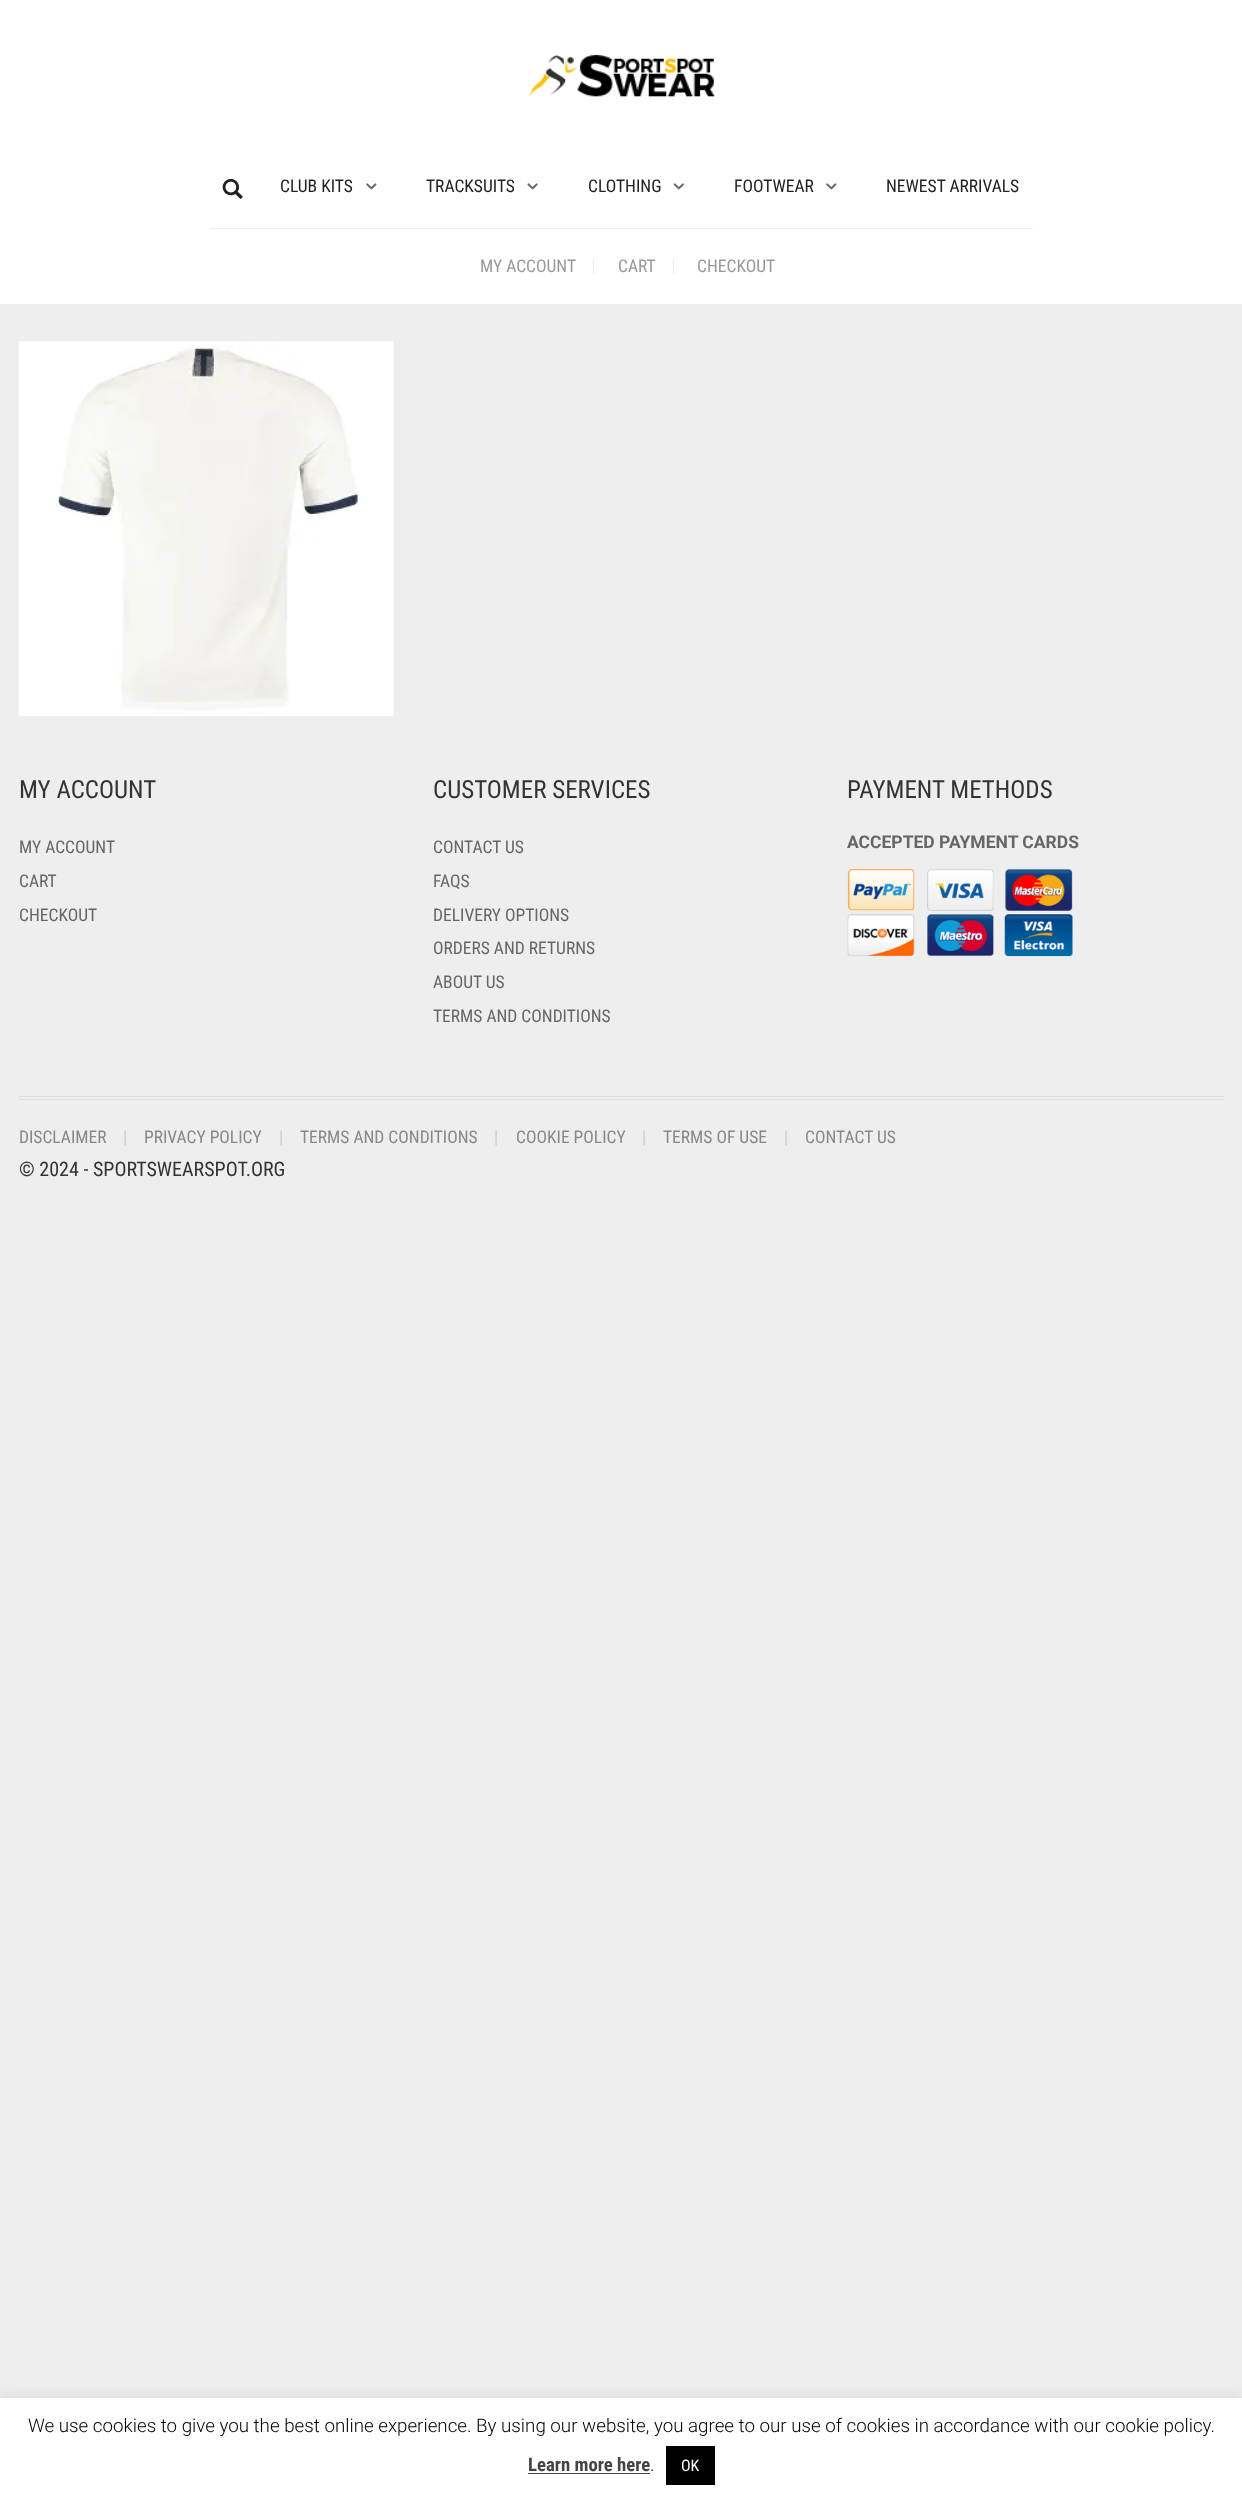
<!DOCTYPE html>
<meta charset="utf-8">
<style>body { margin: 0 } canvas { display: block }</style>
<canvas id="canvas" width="1242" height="2499"></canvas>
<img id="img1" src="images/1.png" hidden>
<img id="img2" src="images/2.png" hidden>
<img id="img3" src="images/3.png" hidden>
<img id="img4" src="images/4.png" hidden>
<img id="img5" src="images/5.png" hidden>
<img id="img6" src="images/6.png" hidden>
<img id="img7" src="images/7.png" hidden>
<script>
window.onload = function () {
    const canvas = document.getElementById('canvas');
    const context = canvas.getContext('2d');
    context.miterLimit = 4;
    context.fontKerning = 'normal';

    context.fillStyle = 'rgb(238, 238, 238)';
    context.fillRect(0, 0, 1242, 2499);
    context.fillStyle = 'rgb(255, 255, 255)';
    context.fillRect(0, 0, 1242, 304);
    context.drawImage(document.getElementById('img1'), 528, 54, 188, 44);
    context.fillStyle = 'rgb(238, 238, 238)';
    context.fillRect(210, 228, 823, 1);
    context.drawImage(document.getElementById('img2'), 222, 178, 21, 21);
    context.drawImage(document.getElementById('img3'), 366, 183, 11, 7);
    context.drawImage(document.getElementById('img4'), 527, 183, 11, 7);
    context.drawImage(document.getElementById('img5'), 673, 183, 11, 7);
    context.drawImage(document.getElementById('img3'), 826, 183, 11, 7);
    context.fillStyle = 'rgb(235, 235, 235)';
    context.fillRect(593, 259, 1, 15);
    context.fillRect(673, 259, 1, 15);
    context.drawImage(document.getElementById('img6'), 18, 341, 376, 376);
    context.drawImage(document.getElementById('img7'), 847, 868, 226, 89);
    context.fillStyle = 'rgb(221, 221, 221)';
    context.fillRect(19, 1096, 1205, 1);
    context.fillRect(19, 1099, 1205, 1);
    context.fillStyle = 'rgba(172, 171, 171, 0.3)';
    context.filter = 'blur(6px)';
    context.beginPath();
    context.rect(0, 2396, 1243, 103);
    context.fill();
    context.filter = 'none';
    context.fillStyle = 'rgb(255, 255, 255)';
    context.fillRect(0, 2398, 1242, 101);
    context.fillStyle = 'rgb(68, 68, 68)';
    context.fillRect(528, 2473, 122, 1);
    context.fillStyle = 'rgb(0, 0, 0)';
    context.fillRect(666, 2446, 49, 39);
    context.font = '17.5px Roboto Condensed';
    context.fillStyle = 'rgb(34, 34, 34)';
    context.fillText('CLUB KITS', 280, 192);
    context.fillText('TRACKSUITS', 426, 192);
    context.fillText('CLOTHING', 588, 192);
    context.fillText('FOOTWEAR', 734, 192);
    context.fillText('NEWEST ARRIVALS', 886, 192);
    context.fillStyle = 'rgb(153, 153, 153)';
    context.fillText('MY ACCOUNT', 480, 272);
    context.fillText('CART', 618, 272);
    context.fillText('CHECKOUT', 697, 272);
    context.font = '25px Roboto Condensed';
    context.fillStyle = 'rgb(51, 51, 51)';
    context.fillText('MY ACCOUNT', 19, 798);
    context.font = '17.5px Roboto Condensed';
    context.fillStyle = 'rgb(102, 102, 102)';
    context.fillText('MY ACCOUNT', 19, 853);
    context.fillText('CART', 19, 887);
    context.fillText('CHECKOUT', 19, 921);
    context.font = '25px Roboto Condensed';
    context.fillStyle = 'rgb(51, 51, 51)';
    context.fillText('CUSTOMER SERVICES', 433, 798);
    context.font = '17.5px Roboto Condensed';
    context.fillStyle = 'rgb(102, 102, 102)';
    context.fillText('CONTACT US', 433, 853);
    context.fillText('FAQS', 433, 887);
    context.fillText('DELIVERY OPTIONS', 433, 921);
    context.fillText('ORDERS AND RETURNS', 433, 954);
    context.fillText('ABOUT US', 433, 988);
    context.fillText('TERMS AND CONDITIONS', 433, 1022);
    context.font = '25px Roboto Condensed';
    context.fillStyle = 'rgb(51, 51, 51)';
    context.fillText('PAYMENT METHODS', 847, 798);
    context.font = 'bold 17.5px Roboto';
    context.fillStyle = 'rgb(102, 102, 102)';
    context.fillText('ACCEPTED PAYMENT CARDS', 847, 848);
    context.font = '17.5px Roboto Condensed';
    context.fillStyle = 'rgb(136, 136, 136)';
    context.fillText('DISCLAIMER', 19, 1143);
    context.font = '17.5px Roboto';
    context.fillStyle = 'rgb(204, 204, 204)';
    context.fillText('|', 123, 1143);
    context.font = '17.5px Roboto Condensed';
    context.fillStyle = 'rgb(136, 136, 136)';
    context.fillText('PRIVACY POLICY', 144, 1143);
    context.font = '17.5px Roboto';
    context.fillStyle = 'rgb(204, 204, 204)';
    context.fillText('|', 279, 1143);
    context.font = '17.5px Roboto Condensed';
    context.fillStyle = 'rgb(136, 136, 136)';
    context.fillText('TERMS AND CONDITIONS', 300, 1143);
    context.font = '17.5px Roboto';
    context.fillStyle = 'rgb(204, 204, 204)';
    context.fillText('|', 494, 1143);
    context.font = '17.5px Roboto Condensed';
    context.fillStyle = 'rgb(136, 136, 136)';
    context.fillText('COOKIE POLICY', 516, 1143);
    context.font = '17.5px Roboto';
    context.fillStyle = 'rgb(204, 204, 204)';
    context.fillText('|', 642, 1143);
    context.font = '17.5px Roboto Condensed';
    context.fillStyle = 'rgb(136, 136, 136)';
    context.fillText('TERMS OF USE', 663, 1143);
    context.font = '17.5px Roboto';
    context.fillStyle = 'rgb(204, 204, 204)';
    context.fillText('|', 784, 1143);
    context.font = '17.5px Roboto Condensed';
    context.fillStyle = 'rgb(136, 136, 136)';
    context.fillText('CONTACT US', 805, 1143);
    context.font = '20px Roboto Condensed';
    context.fillStyle = 'rgb(51, 51, 51)';
    context.fillText('© 2024 - SPORTSWEARSPOT.ORG', 19, 1176);
    context.font = '300 18.75px Roboto';
    context.fillStyle = 'rgb(0, 0, 0)';
    context.fillText('We use cookies to give you the best online experience. By using our website, you agree to our use of cookies in accordance with our cookie policy.', 28, 2432);
    context.font = 'bold 18.75px Roboto Condensed';
    context.fillStyle = 'rgb(68, 68, 68)';
    context.fillText('Learn more here', 528, 2471);
    context.font = '300 18.75px Roboto';
    context.fillStyle = 'rgb(0, 0, 0)';
    context.fillText('.', 650, 2471);
    context.font = '16px Roboto Condensed';
    context.fillStyle = 'rgb(255, 255, 255)';
    context.fillText('OK', 681, 2471);
};
</script>
